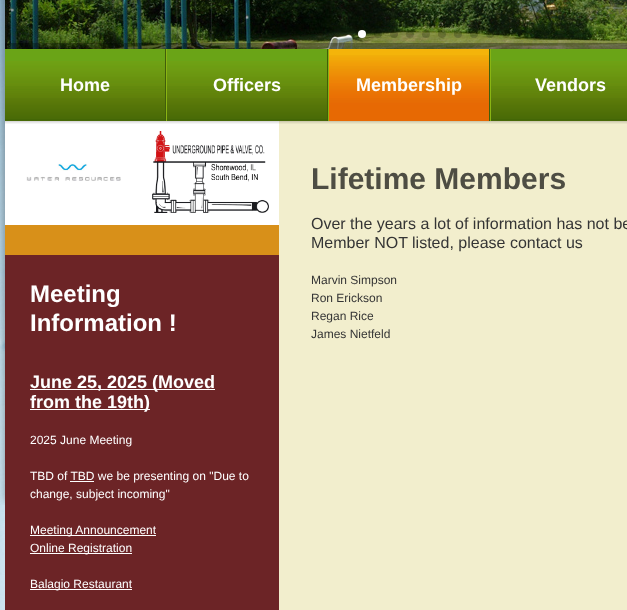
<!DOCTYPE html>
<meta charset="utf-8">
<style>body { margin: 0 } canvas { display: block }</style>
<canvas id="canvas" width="627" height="610"></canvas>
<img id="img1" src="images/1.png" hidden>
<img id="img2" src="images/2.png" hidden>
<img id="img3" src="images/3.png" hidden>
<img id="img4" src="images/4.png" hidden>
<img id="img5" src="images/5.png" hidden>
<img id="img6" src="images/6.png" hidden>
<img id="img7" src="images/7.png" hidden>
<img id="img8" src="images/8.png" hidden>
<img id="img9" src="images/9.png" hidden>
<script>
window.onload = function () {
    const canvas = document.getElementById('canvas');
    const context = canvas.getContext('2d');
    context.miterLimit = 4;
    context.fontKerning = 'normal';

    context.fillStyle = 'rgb(255, 255, 255)';
    context.fillRect(0, 0, 627, 610);
    context.drawImage(document.getElementById('img1'), 0, 0, 5, 610);
    context.drawImage(document.getElementById('img2'), 0, 0, 5, 505);
    context.drawImage(document.getElementById('img3'), 5, 0, 622, 49);
    context.beginPath();
    context.arc(362, 34, 4, 0, 2 * Math.PI);
    context.fill();
    context.fillStyle = 'rgba(0, 0, 0, 0.2)';
    context.beginPath();
    context.arc(378, 34, 4, 0, 2 * Math.PI);
    context.fill();
    context.beginPath();
    context.arc(394, 34, 4, 0, 2 * Math.PI);
    context.fill();
    context.beginPath();
    context.arc(410, 34, 4, 0, 2 * Math.PI);
    context.fill();
    context.beginPath();
    context.arc(426, 34, 4, 0, 2 * Math.PI);
    context.fill();
    context.beginPath();
    context.arc(442, 34, 4, 0, 2 * Math.PI);
    context.fill();
    context.beginPath();
    context.arc(458, 34, 4, 0, 2 * Math.PI);
    context.fill();
    context.beginPath();
    context.arc(474, 34, 4, 0, 2 * Math.PI);
    context.fill();
    context.beginPath();
    context.arc(490, 34, 4, 0, 2 * Math.PI);
    context.fill();
    context.beginPath();
    context.arc(506, 34, 4, 0, 2 * Math.PI);
    context.fill();
    context.beginPath();
    context.arc(522, 34, 4, 0, 2 * Math.PI);
    context.fill();
    context.beginPath();
    context.arc(538, 34, 4, 0, 2 * Math.PI);
    context.fill();
    context.beginPath();
    context.arc(554, 34, 4, 0, 2 * Math.PI);
    context.fill();
    context.beginPath();
    context.arc(570, 34, 4, 0, 2 * Math.PI);
    context.fill();
    context.beginPath();
    context.arc(586, 34, 4, 0, 2 * Math.PI);
    context.fill();
    context.beginPath();
    context.arc(602, 34, 4, 0, 2 * Math.PI);
    context.fill();
    context.beginPath();
    context.arc(618, 34, 4, 0, 2 * Math.PI);
    context.fill();
    context.fillStyle = 'rgb(242, 238, 205)';
    context.fillRect(279, 121, 348, 489);
    context.drawImage(document.getElementById('img4'), 5, 43, 622, 81);
    context.fillStyle = 'rgb(65, 95, 9)';
    context.fillRect(165, 49, 1, 72);
    context.fillStyle = 'rgb(106, 164, 23)';
    context.fillRect(5, 49, 160, 12);
    context.drawImage(document.getElementById('img5'), 5, 61, 160, 60);
    context.fillStyle = 'rgb(65, 95, 9)';
    context.fillRect(327, 49, 1, 72);
    context.fillStyle = 'rgb(138, 180, 19)';
    context.fillRect(166, 49, 1, 72);
    context.fillStyle = 'rgb(106, 164, 23)';
    context.fillRect(167, 49, 160, 12);
    context.drawImage(document.getElementById('img5'), 167, 61, 160, 60);
    context.fillStyle = 'rgb(65, 95, 9)';
    context.fillRect(489, 49, 1, 72);
    context.fillStyle = 'rgb(138, 180, 19)';
    context.fillRect(328, 49, 1, 72);
    context.fillStyle = 'rgb(244, 180, 10)';
    context.fillRect(329, 49, 160, 6);
    context.drawImage(document.getElementById('img6'), 329, 55, 160, 66);
    context.fillStyle = 'rgb(138, 180, 19)';
    context.fillRect(490, 49, 1, 72);
    context.fillStyle = 'rgb(106, 164, 23)';
    context.fillRect(491, 49, 136, 12);
    context.drawImage(document.getElementById('img7'), 491, 61, 136, 60);
    context.fillStyle = 'rgb(216, 144, 25)';
    context.fillRect(5, 225, 274, 30);
    context.drawImage(document.getElementById('img8'), 26, 163, 95, 18);
    context.drawImage(document.getElementById('img9'), 152, 131, 117, 82);
    context.fillStyle = 'rgb(108, 36, 38)';
    context.fillRect(5, 255, 274, 355);
    context.fillStyle = 'rgb(255, 255, 255)';
    context.fillRect(30, 389, 185, 1);
    context.fillRect(30, 409, 120, 1);
    context.fillRect(70, 481, 24, 1);
    context.fillRect(30, 535, 126, 1);
    context.fillRect(30, 553, 102, 1);
    context.fillRect(30, 589, 102, 1);
    context.font = 'bold 18px Liberation Sans';
    context.fillText('Home', 60, 91);
    context.fillText('Officers', 213, 91);
    context.fillText('Membership', 356, 91);
    context.fillText('Vendors', 535, 91);
    context.font = 'bold 30px Liberation Sans';
    context.fillStyle = 'rgb(78, 77, 67)';
    context.fillText('Lifetime Members', 311, 189);
    context.font = '16px Liberation Sans';
    context.fillStyle = 'rgb(53, 53, 53)';
    context.fillText('Over the years a lot of information has not be', 311, 229);
    context.fillText('Member NOT listed, please contact us', 311, 248);
    context.font = '12px Liberation Sans';
    context.fillText('Marvin Simpson', 311, 284);
    context.fillText('Ron Erickson', 311, 302);
    context.fillText('Regan Rice', 311, 320);
    context.fillText('James Nietfeld', 311, 338);
    context.font = 'bold 24px Liberation Sans';
    context.fillStyle = 'rgb(255, 255, 255)';
    context.fillText('Meeting', 30, 302);
    context.fillText('Information !', 30, 331);
    context.font = 'bold 18px Liberation Sans';
    context.fillText('June 25, 2025 (Moved', 30, 388);
    context.fillText('from the 19th)', 30, 408);
    context.font = '12px Liberation Sans';
    context.fillText('2025 June Meeting', 30, 444);
    context.fillText('TBD of TBD we be presenting on "Due to', 30, 480);
    context.fillText('change, subject incoming"', 30, 498);
    context.fillText('Meeting Announcement', 30, 534);
    context.fillText('Online Registration', 30, 552);
    context.fillText('Balagio Restaurant', 30, 588);
};
</script>
